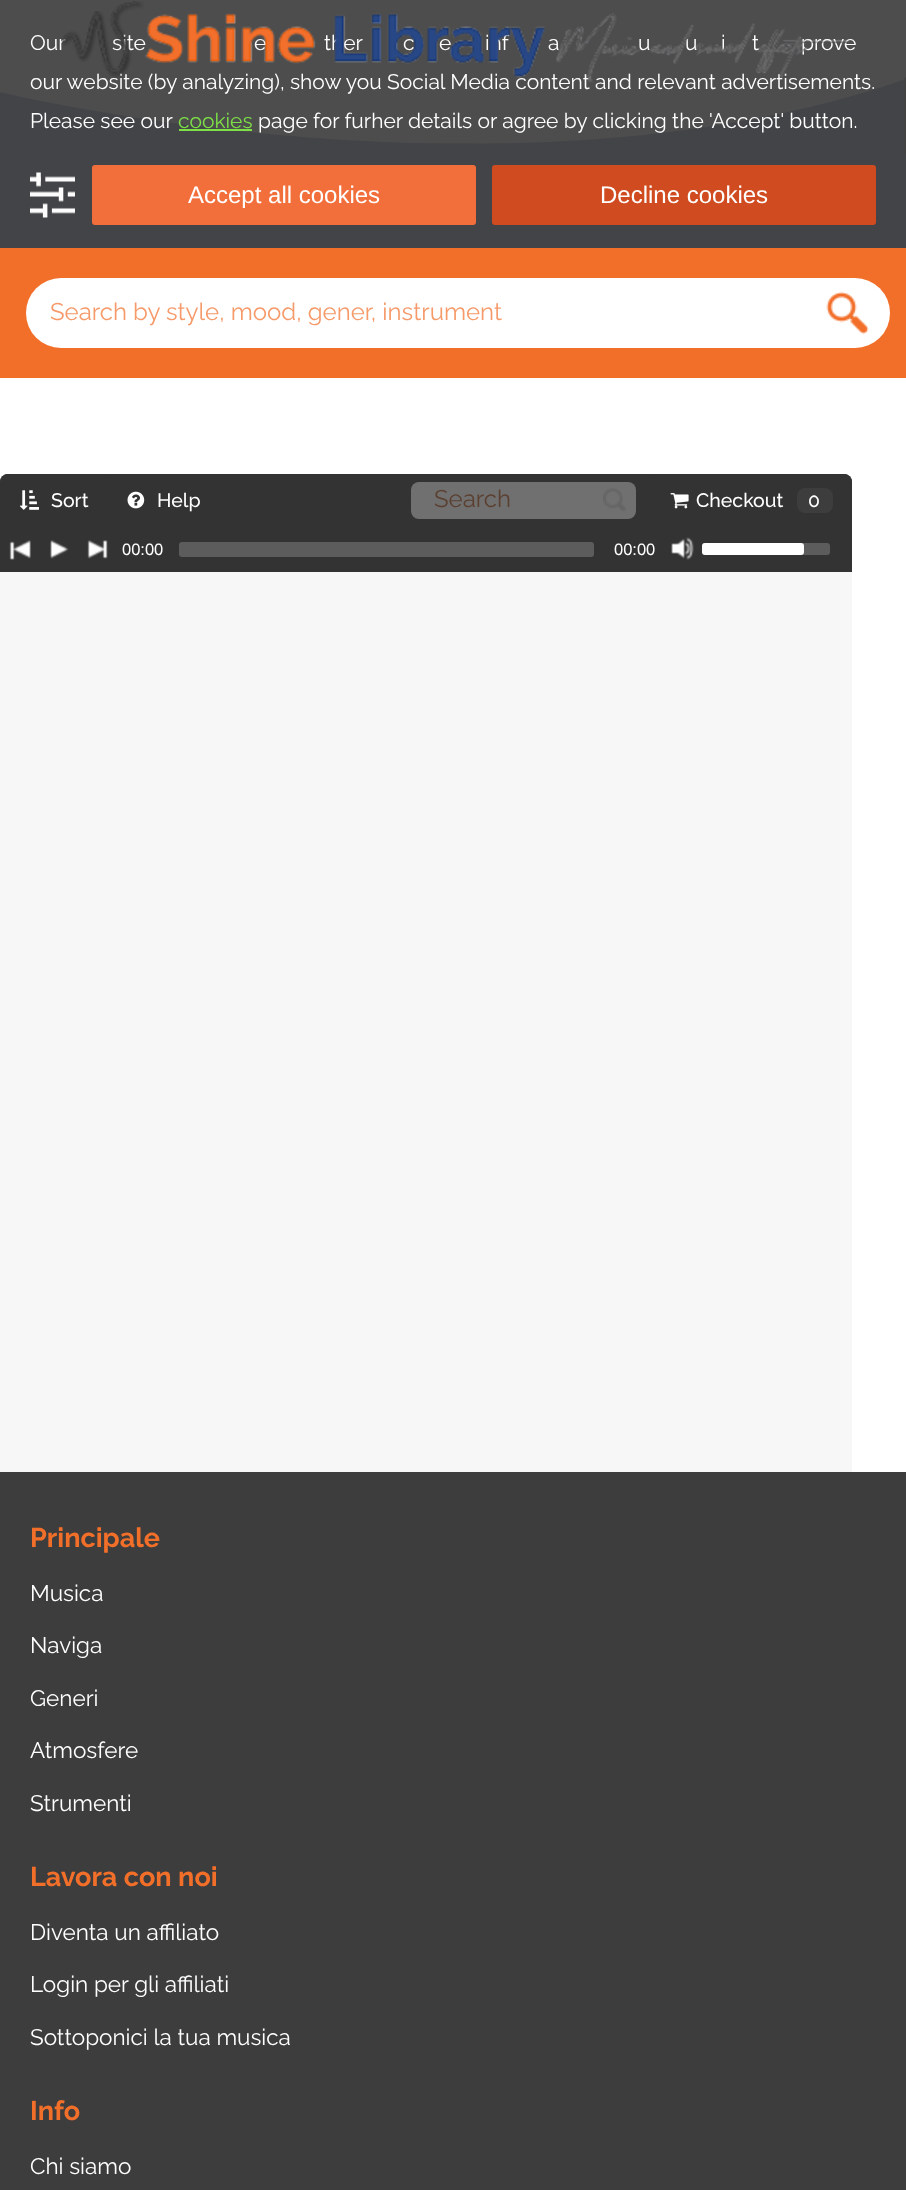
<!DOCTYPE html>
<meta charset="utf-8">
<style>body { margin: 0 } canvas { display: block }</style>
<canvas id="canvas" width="906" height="2190"></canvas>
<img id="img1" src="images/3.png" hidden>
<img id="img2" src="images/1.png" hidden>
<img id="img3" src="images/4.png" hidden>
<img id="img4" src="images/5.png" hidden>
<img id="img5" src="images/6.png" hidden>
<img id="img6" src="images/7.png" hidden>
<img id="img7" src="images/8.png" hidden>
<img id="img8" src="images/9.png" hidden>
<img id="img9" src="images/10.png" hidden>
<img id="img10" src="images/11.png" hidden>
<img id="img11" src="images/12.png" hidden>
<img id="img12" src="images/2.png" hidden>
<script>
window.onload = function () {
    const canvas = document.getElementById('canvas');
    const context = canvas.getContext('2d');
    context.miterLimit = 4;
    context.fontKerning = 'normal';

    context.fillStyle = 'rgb(255, 255, 255)';
    context.fillRect(0, 0, 906, 2190);
    context.fillStyle = 'rgb(77, 77, 77)';
    context.fillRect(0, 0, 906, 78);
    context.fillStyle = 'rgb(61, 61, 61)';
    context.fillRect(0, 1472, 906, 718);
    context.drawImage(document.getElementById('img1'), 0, 77, 906, 77);
    context.fillStyle = 'rgb(125, 224, 71)';
    context.fillRect(179, 129, 73, 2);
    context.fillStyle = 'rgb(67, 68, 71)';
    context.fillRect(0, 154, 906, 94);
    context.drawImage(document.getElementById('img2'), 30, 172, 45, 46);
    context.fillStyle = 'rgb(242, 111, 59)';
    context.beginPath();
    context.roundRect(92, 165, 384, 60, 3);
    context.fill();
    context.fillStyle = 'rgb(208, 76, 32)';
    context.beginPath();
    context.roundRect(492, 165, 384, 60, 3);
    context.fill();
    context.fillStyle = 'rgb(242, 111, 42)';
    context.fillRect(0, 248, 906, 130);
    context.fillStyle = 'rgb(255, 255, 255)';
    context.beginPath();
    context.roundRect(26, 278, 864, 70, 35);
    context.fill();
    context.drawImage(document.getElementById('img3'), 826, 291, 43, 44);
    context.fillStyle = 'rgb(51, 51, 51)';
    context.beginPath();
    context.roundRect(0, 474, 852, 53, [8, 8, 0, 0]);
    context.fill();
    context.beginPath();
    context.roundRect(0, 474, 108, 53, [8, 8, 0, 0]);
    context.fill();
    context.drawImage(document.getElementById('img4'), 19, 490, 20, 20);
    context.drawImage(document.getElementById('img5'), 127, 491, 18, 18);
    context.fillStyle = 'rgb(112, 112, 112)';
    context.beginPath();
    context.roundRect(411, 482, 225, 37, 8);
    context.fill();
    context.drawImage(document.getElementById('img6'), 603, 488, 23, 23);
    context.fillStyle = 'rgb(51, 51, 51)';
    context.beginPath();
    context.roundRect(651, 474, 201, 53, [8, 8, 0, 0]);
    context.fill();
    context.drawImage(document.getElementById('img7'), 670, 493, 19, 16);
    context.fillStyle = 'rgb(61, 61, 61)';
    context.beginPath();
    context.roundRect(797, 488, 36, 25, 8);
    context.fill();
    context.fillStyle = 'rgb(247, 247, 247)';
    context.fillRect(0, 572, 852, 900);
    context.fillStyle = 'rgb(51, 51, 51)';
    context.fillRect(0, 527, 852, 45);
    context.drawImage(document.getElementById('img8'), 9, 540, 22, 20);
    context.drawImage(document.getElementById('img9'), 50, 540, 19, 19);
    context.drawImage(document.getElementById('img10'), 87, 540, 21, 19);
    context.fillStyle = 'rgb(92, 92, 92)';
    context.beginPath();
    context.roundRect(179, 542, 415, 15, 3);
    context.fill();
    context.drawImage(document.getElementById('img11'), 671, 537, 23, 23);
    context.beginPath();
    context.roundRect(702, 543, 128, 12, 3);
    context.fill();
    context.fillStyle = 'rgb(255, 255, 255)';
    context.beginPath();
    context.roundRect(702, 543, 102, 12, 3);
    context.fill();
    context.font = '21px Raleway';
    context.fillText('Our', 30, 50);
    context.fillText('site', 112, 50);
    context.fillText('e', 254, 50);
    context.fillText('ther', 324, 50);
    context.fillText('c', 403, 50);
    context.fillText('e', 439, 50);
    context.fillText('inf', 485, 50);
    context.fillText('a', 548, 50);
    context.fillText('u', 638, 50);
    context.fillText('u', 685, 50);
    context.fillText('i', 721, 50);
    context.fillText('t', 752, 50);
    context.fillText('prove', 801, 50);
    context.fillText('our website (by analyzing), show you Social Media content and relevant advertisements.', 30, 89);
    context.fillText('Please see our', 30, 128);
    context.fillStyle = 'rgb(125, 224, 71)';
    context.fillText('cookies', 178, 128);
    context.fillStyle = 'rgb(255, 255, 255)';
    context.fillText('page for furher details or agree by clicking the \'Accept\' button.', 258, 128);
    context.font = '24px Liberation Sans';
    context.fillText('Accept all cookies', 188, 203);
    context.fillText('Decline cookies', 600, 203);
    context.font = 'bold 27px Raleway';
    context.fillStyle = 'rgb(242, 111, 42)';
    context.fillText('Principale', 30, 1547);
    context.font = '22.5px Raleway';
    context.fillStyle = 'rgb(255, 255, 255)';
    context.fillText('Musica', 30, 1601);
    context.fillText('Naviga', 30, 1653);
    context.fillText('Generi', 30, 1706);
    context.fillText('Atmosfere', 30, 1758);
    context.fillText('Strumenti', 30, 1811);
    context.font = 'bold 27px Raleway';
    context.fillStyle = 'rgb(242, 111, 42)';
    context.fillText('Lavora con noi', 30, 1886);
    context.font = '22.5px Raleway';
    context.fillStyle = 'rgb(255, 255, 255)';
    context.fillText('Diventa un affiliato', 30, 1940);
    context.fillText('Login per gli affiliati', 30, 1992);
    context.fillText('Sottoponici la tua musica', 30, 2045);
    context.font = 'bold 27px Raleway';
    context.fillStyle = 'rgb(242, 111, 42)';
    context.fillText('Info', 30, 2120);
    context.font = '22.5px Raleway';
    context.fillStyle = 'rgb(255, 255, 255)';
    context.fillText('Chi siamo', 30, 2174);
    context.drawImage(document.getElementById('img12'), 60, 1, 789, 82);
    context.font = '24px Raleway';
    context.fillStyle = 'rgb(246, 154, 106)';
    context.fillText('Search by style, mood, gener, instrument', 50, 320);
    context.font = '500 19.5px Raleway';
    context.fillStyle = 'rgb(255, 255, 255)';
    context.fillText('Sort', 51, 507);
    context.fillText('Help', 157, 507);
    context.font = '24px Raleway';
    context.fillStyle = 'rgb(91, 64, 49)';
    context.fillText('Search', 434, 507);
    context.font = '500 19.5px Raleway';
    context.fillStyle = 'rgb(255, 255, 255)';
    context.fillText('Checkout', 696, 507);
    context.fillText('0', 808, 507);
    context.font = '16.5px Liberation Sans';
    context.fillText('00:00', 122, 555);
    context.fillText('00:00', 614, 555);
};
</script>
